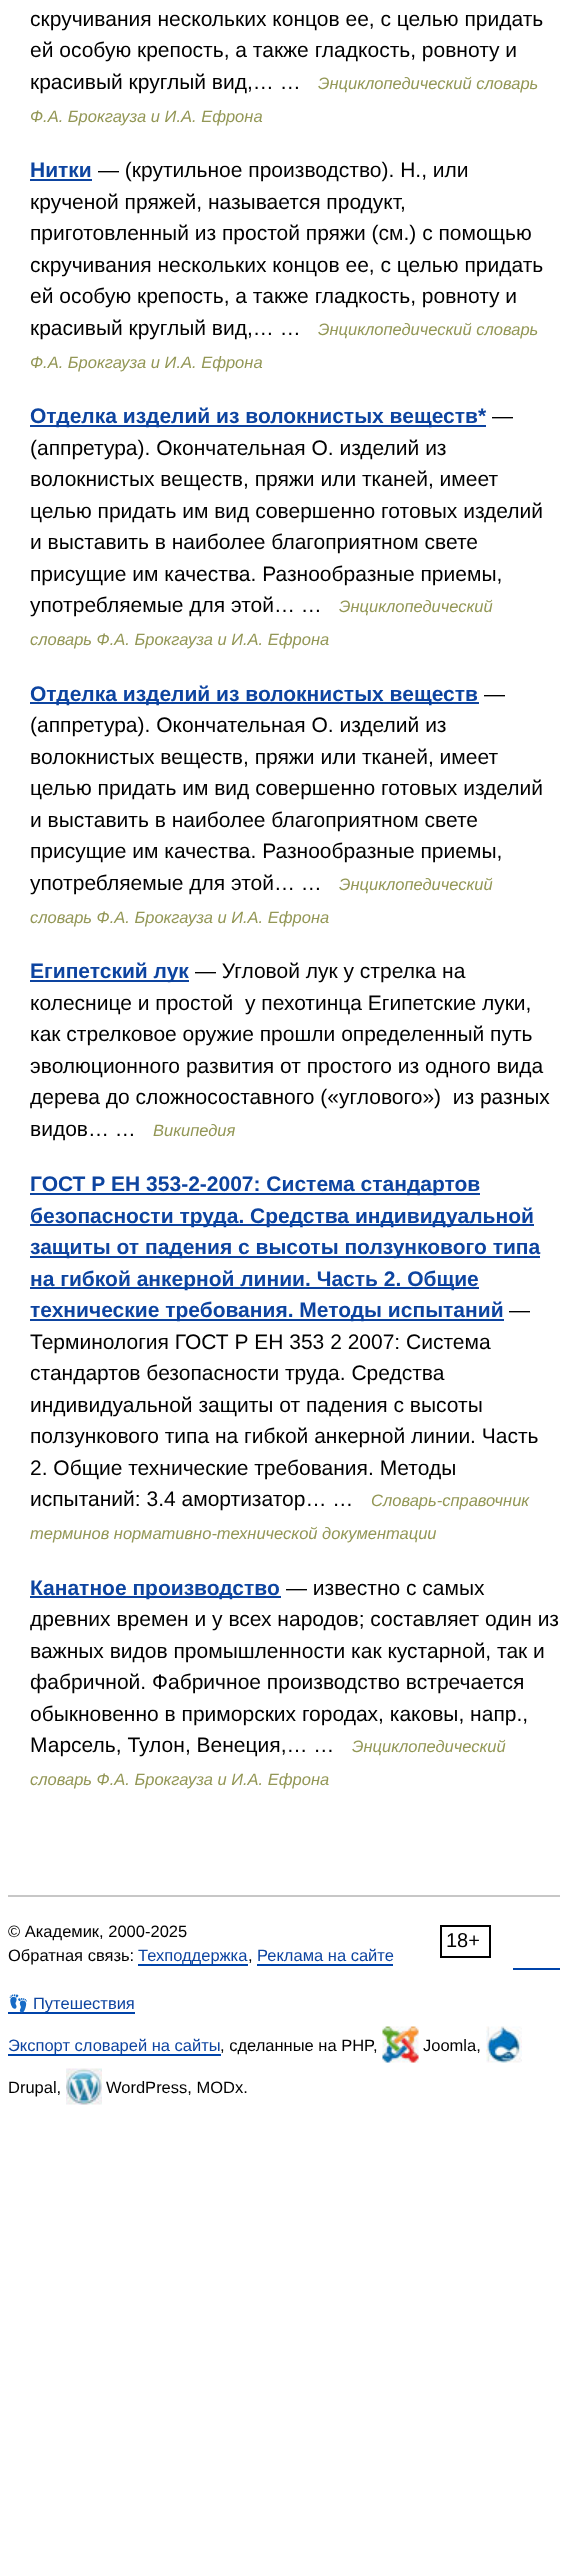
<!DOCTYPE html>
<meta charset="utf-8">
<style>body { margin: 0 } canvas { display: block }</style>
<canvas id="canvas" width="567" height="2569"></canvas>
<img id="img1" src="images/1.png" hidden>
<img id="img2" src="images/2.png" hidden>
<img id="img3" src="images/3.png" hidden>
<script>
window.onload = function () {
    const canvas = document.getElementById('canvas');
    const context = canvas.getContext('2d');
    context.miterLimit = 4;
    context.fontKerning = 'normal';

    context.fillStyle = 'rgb(255, 255, 255)';
    context.fillRect(0, 0, 567, 2569);
    context.fillStyle = 'rgb(13, 68, 160)';
    context.fillRect(30, 179, 62, 2);
    context.fillRect(30, 425, 456, 2);
    context.fillRect(30, 702, 449, 2);
    context.fillRect(30, 980, 159, 2);
    context.fillRect(30, 1193, 450, 2);
    context.fillRect(30, 1224, 504, 2);
    context.fillRect(30, 1256, 510, 2);
    context.fillRect(30, 1287, 449, 2);
    context.fillRect(30, 1319, 474, 2);
    context.fillRect(30, 1596, 251, 2);
    context.fillStyle = 'rgb(199, 199, 199)';
    context.fillRect(8, 1895, 552, 2);
    context.strokeStyle = 'rgb(0, 0, 0)';
    context.lineWidth = 2;
    context.strokeRect(441, 1926, 49, 31);
    context.fillStyle = 'rgb(0, 68, 170)';
    context.fillRect(138, 1964, 110, 2);
    context.fillRect(257, 1964, 136, 2);
    context.fillRect(513, 1968, 47, 2);
    context.fillRect(8, 2012, 127, 2);
    context.fillRect(8, 2054, 213, 2);
    context.drawImage(document.getElementById('img1'), 382, 2026, 37, 37);
    context.drawImage(document.getElementById('img2'), 486, 2026, 36, 37);
    context.drawImage(document.getElementById('img3'), 66, 2068, 36, 37);
    context.font = '21px Liberation Sans';
    context.fillStyle = 'rgb(0, 0, 0)';
    context.fillText('скручивания нескольких концов ее, с целью придать', 30, 26);
    context.fillText('ей особую крепость, а также гладкость, ровноту и', 30, 57);
    context.fillText('красивый круглый вид,… …', 30, 89);
    context.font = 'italic 16.5px Liberation Sans';
    context.fillStyle = 'rgb(147, 151, 86)';
    context.fillText('Энциклопедический словарь', 318, 89);
    context.fillText('Ф.А. Брокгауза и И.А. Ефрона', 30, 122);
    context.font = 'bold 21px Liberation Sans';
    context.fillStyle = 'rgb(13, 68, 160)';
    context.fillText('Нитки', 30, 177);
    context.font = '21px Liberation Sans';
    context.fillStyle = 'rgb(0, 0, 0)';
    context.fillText('— (крутильное производство). Н., или', 98, 177);
    context.fillText('крученой пряжей, называется продукт,', 30, 209);
    context.fillText('приготовленный из простой пряжи (см.) с помощью', 30, 240);
    context.fillText('скручивания нескольких концов ее, с целью придать', 30, 272);
    context.fillText('ей особую крепость, а также гладкость, ровноту и', 30, 303);
    context.fillText('красивый круглый вид,… …', 30, 335);
    context.font = 'italic 16.5px Liberation Sans';
    context.fillStyle = 'rgb(147, 151, 86)';
    context.fillText('Энциклопедический словарь', 318, 335);
    context.fillText('Ф.А. Брокгауза и И.А. Ефрона', 30, 368);
    context.font = 'bold 21px Liberation Sans';
    context.fillStyle = 'rgb(13, 68, 160)';
    context.fillText('Отделка изделий из волокнистых веществ*', 30, 423);
    context.font = '21px Liberation Sans';
    context.fillStyle = 'rgb(0, 0, 0)';
    context.fillText('—', 492, 423);
    context.fillText('(аппретура). Окончательная О. изделий из', 30, 455);
    context.fillText('волокнистых веществ, пряжи или тканей, имеет', 30, 486);
    context.fillText('целью придать им вид совершенно готовых изделий', 30, 518);
    context.fillText('и выставить в наиболее благоприятном свете', 30, 549);
    context.fillText('присущие им качества. Разнообразные приемы,', 30, 581);
    context.fillText('употребляемые для этой… …', 30, 612);
    context.font = 'italic 16.5px Liberation Sans';
    context.fillStyle = 'rgb(147, 151, 86)';
    context.fillText('Энциклопедический', 339, 612);
    context.fillText('словарь Ф.А. Брокгауза и И.А. Ефрона', 30, 645);
    context.font = 'bold 21px Liberation Sans';
    context.fillStyle = 'rgb(13, 68, 160)';
    context.fillText('Отделка изделий из волокнистых веществ', 30, 701);
    context.font = '21px Liberation Sans';
    context.fillStyle = 'rgb(0, 0, 0)';
    context.fillText('—', 484, 701);
    context.fillText('(аппретура). Окончательная О. изделий из', 30, 732);
    context.fillText('волокнистых веществ, пряжи или тканей, имеет', 30, 764);
    context.fillText('целью придать им вид совершенно готовых изделий', 30, 795);
    context.fillText('и выставить в наиболее благоприятном свете', 30, 827);
    context.fillText('присущие им качества. Разнообразные приемы,', 30, 858);
    context.fillText('употребляемые для этой… …', 30, 890);
    context.font = 'italic 16.5px Liberation Sans';
    context.fillStyle = 'rgb(147, 151, 86)';
    context.fillText('Энциклопедический', 339, 890);
    context.fillText('словарь Ф.А. Брокгауза и И.А. Ефрона', 30, 923);
    context.font = 'bold 21px Liberation Sans';
    context.fillStyle = 'rgb(13, 68, 160)';
    context.fillText('Египетский лук', 30, 978);
    context.font = '21px Liberation Sans';
    context.fillStyle = 'rgb(0, 0, 0)';
    context.fillText('— Угловой лук у стрелка на', 195, 978);
    context.fillText('колеснице и простой  у пехотинца Египетские луки,', 30, 1010);
    context.fillText('как стрелковое оружие прошли определенный путь', 30, 1041);
    context.fillText('эволюционного развития от простого из одного вида', 30, 1073);
    context.fillText('дерева до сложносоставного («углового»)  из разных', 30, 1104);
    context.fillText('видов… …', 30, 1136);
    context.font = 'italic 16.5px Liberation Sans';
    context.fillStyle = 'rgb(147, 151, 86)';
    context.fillText('Википедия', 153, 1136);
    context.font = 'bold 21px Liberation Sans';
    context.fillStyle = 'rgb(13, 68, 160)';
    context.fillText('ГОСТ Р ЕН 353-2-2007: Система стандартов', 30, 1191);
    context.fillText('безопасности труда. Средства индивидуальной', 30, 1223);
    context.fillText('защиты от падения с высоты ползункового типа', 30, 1254);
    context.fillText('на гибкой анкерной линии. Часть 2. Общие', 30, 1286);
    context.fillText('технические требования. Методы испытаний', 30, 1317);
    context.font = '21px Liberation Sans';
    context.fillStyle = 'rgb(0, 0, 0)';
    context.fillText('—', 509, 1317);
    context.fillText('Терминология ГОСТ Р ЕН 353 2 2007: Система', 30, 1349);
    context.fillText('стандартов безопасности труда. Средства', 30, 1380);
    context.fillText('индивидуальной защиты от падения с высоты', 30, 1412);
    context.fillText('ползункового типа на гибкой анкерной линии. Часть', 30, 1443);
    context.fillText('2. Общие технические требования. Методы', 30, 1475);
    context.fillText('испытаний: 3.4 амортизатор… …', 30, 1506);
    context.font = 'italic 16.5px Liberation Sans';
    context.fillStyle = 'rgb(147, 151, 86)';
    context.fillText('Словарь-справочник', 371, 1506);
    context.fillText('терминов нормативно-технической документации', 30, 1539);
    context.font = 'bold 21px Liberation Sans';
    context.fillStyle = 'rgb(13, 68, 160)';
    context.fillText('Канатное производство', 30, 1595);
    context.font = '21px Liberation Sans';
    context.fillStyle = 'rgb(0, 0, 0)';
    context.fillText('— известно с самых', 286, 1595);
    context.fillText('древних времен и у всех народов; составляет один из', 30, 1626);
    context.fillText('важных видов промышленности как кустарной, так и', 30, 1658);
    context.fillText('фабричной. Фабричное производство встречается', 30, 1689);
    context.fillText('обыкновенно в приморских городах, каковы, напр.,', 30, 1721);
    context.fillText('Марсель, Тулон, Венеция,… …', 30, 1752);
    context.font = 'italic 16.5px Liberation Sans';
    context.fillStyle = 'rgb(147, 151, 86)';
    context.fillText('Энциклопедический', 352, 1752);
    context.fillText('словарь Ф.А. Брокгауза и И.А. Ефрона', 30, 1785);
    context.font = '16.5px Liberation Sans';
    context.fillStyle = 'rgb(0, 0, 0)';
    context.fillText('© Академик, 2000-2025', 8, 1937);
    context.font = '20px Liberation Sans';
    context.fillText('18+', 446, 1947);
    context.font = '16.5px Liberation Sans';
    context.fillText('Обратная связь:', 8, 1961);
    context.fillStyle = 'rgb(13, 68, 160)';
    context.fillText('Техподдержка', 138, 1961);
    context.fillStyle = 'rgb(0, 0, 0)';
    context.fillText(',', 248, 1961);
    context.fillStyle = 'rgb(13, 68, 160)';
    context.fillText('Реклама на сайте', 257, 1961);
    context.font = '16.5px Noto Color Emoji';
    context.fillText('👣', 8, 2009);
    context.font = '16.5px Liberation Sans';
    context.fillText('Путешествия', 33, 2009);
    context.fillText('Экспорт словарей на сайты', 8, 2051);
    context.fillStyle = 'rgb(0, 0, 0)';
    context.fillText(', сделанные на PHP,', 220, 2051);
    context.fillText('Joomla,', 423, 2051);
    context.fillText('Drupal,', 8, 2093);
    context.fillText('WordPress, MODx.', 106, 2093);
};
</script>
